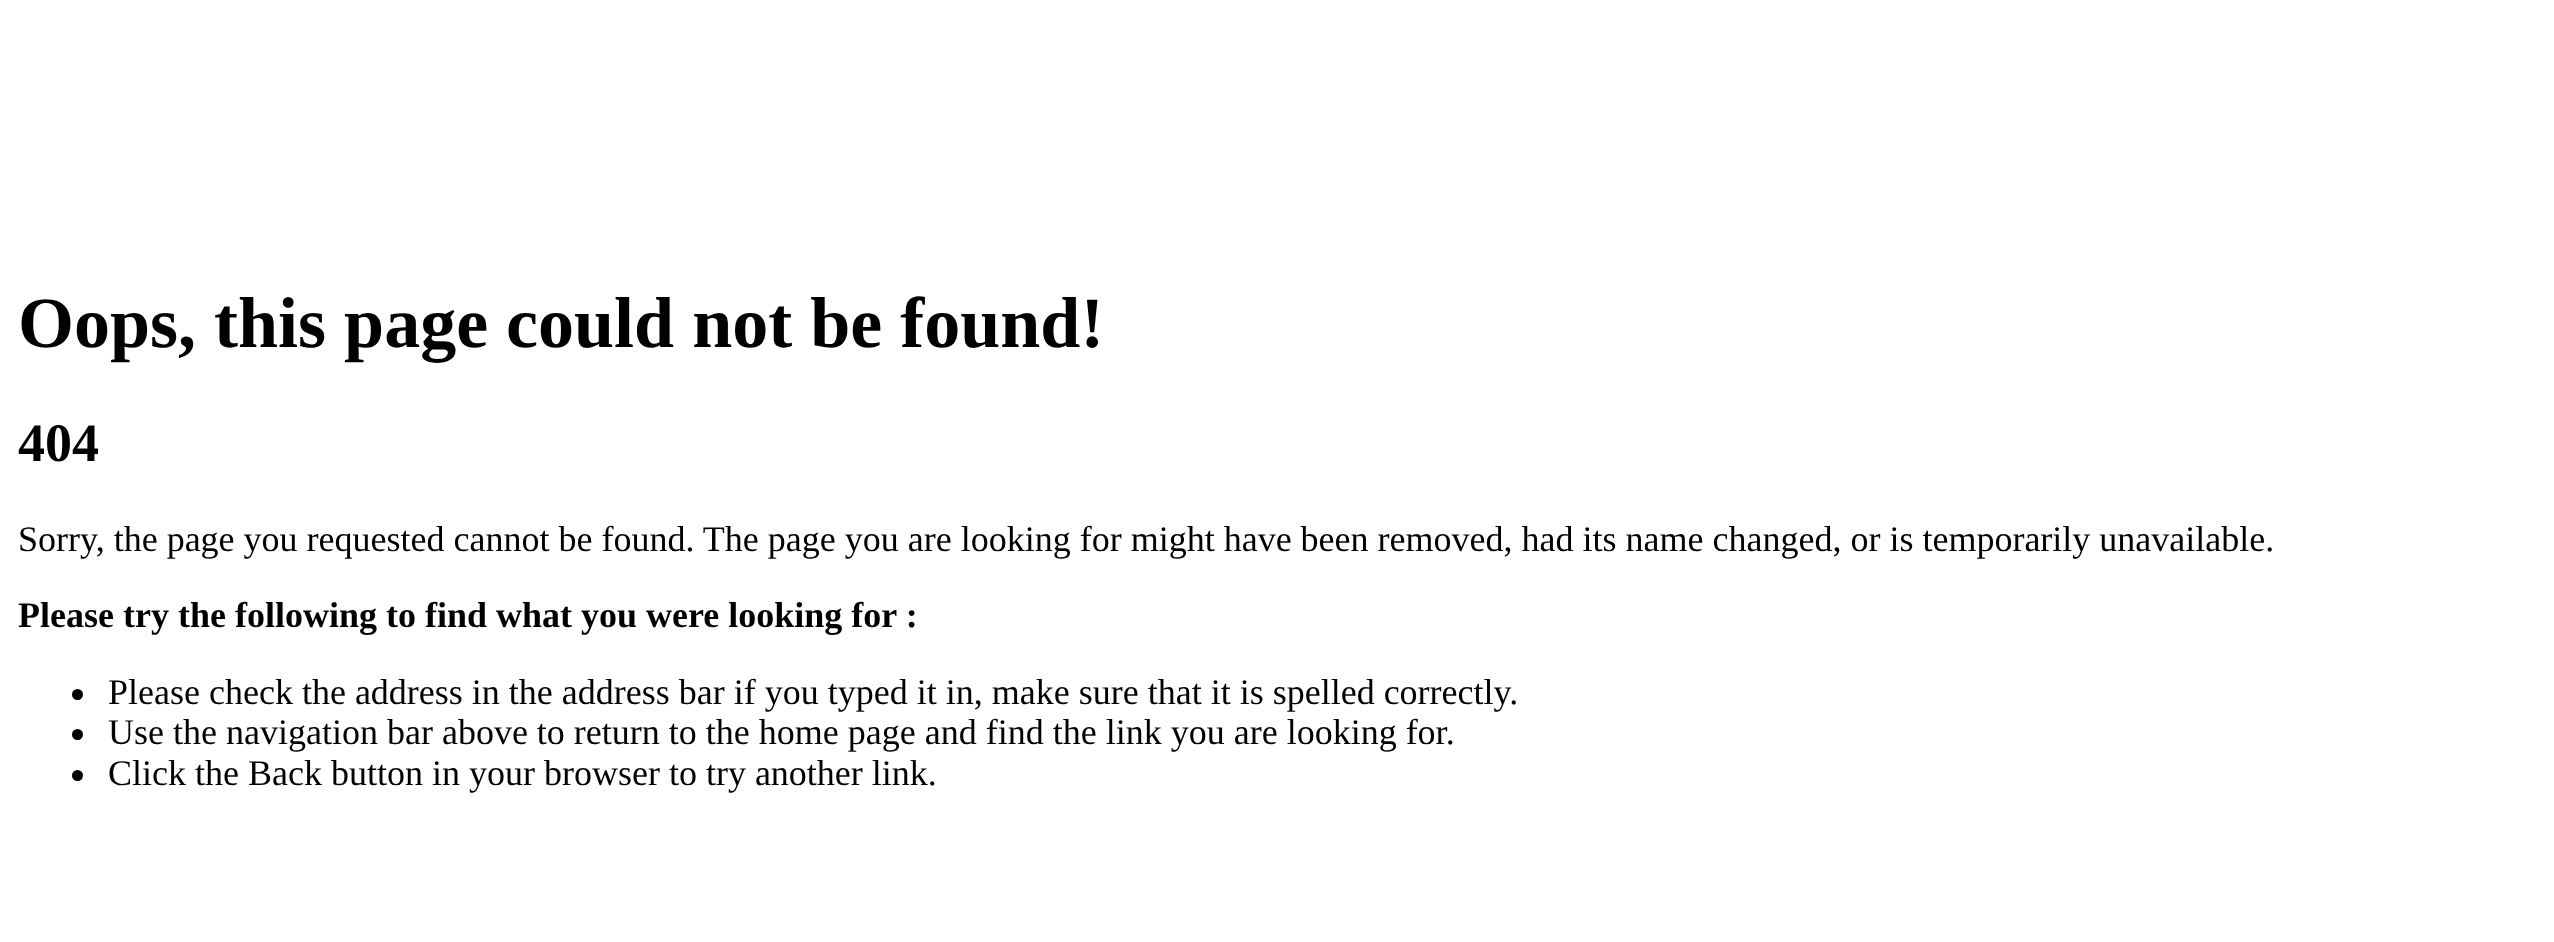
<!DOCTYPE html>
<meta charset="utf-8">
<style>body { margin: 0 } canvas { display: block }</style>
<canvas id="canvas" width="2554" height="942"></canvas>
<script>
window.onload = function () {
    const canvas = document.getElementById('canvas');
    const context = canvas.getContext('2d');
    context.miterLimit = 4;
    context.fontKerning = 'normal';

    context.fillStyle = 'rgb(255, 255, 255)';
    context.fillRect(0, 0, 2554, 942);
    context.fillStyle = 'rgb(0, 0, 0)';
    context.beginPath();
    context.arc(77.5, 694.5, 5.5, 0, 2 * Math.PI);
    context.fill();
    context.beginPath();
    context.arc(77.5, 734.5, 5.5, 0, 2 * Math.PI);
    context.fill();
    context.beginPath();
    context.arc(77.5, 775.5, 5.5, 0, 2 * Math.PI);
    context.fill();
    context.font = 'bold 72px Liberation Serif';
    context.fillText('Oops, this page could not be found!', 18, 347);
    context.font = 'bold 54px Liberation Serif';
    context.fillText('404', 18, 461);
    context.font = '36px Liberation Serif';
    context.fillText('Sorry, the page you requested cannot be found. The page you are looking for might have been removed, had its name changed, or is temporarily unavailable.', 18, 551);
    context.font = 'bold 36px Liberation Serif';
    context.fillText('Please try the following to find what you were looking for :', 18, 627);
    context.font = '36px Liberation Serif';
    context.fillText('Please check the address in the address bar if you typed it in, make sure that it is spelled correctly.', 108, 704);
    context.fillText('Use the navigation bar above to return to the home page and find the link you are looking for.', 108, 744);
    context.fillText('Click the Back button in your browser to try another link.', 108, 785);
};
</script>
